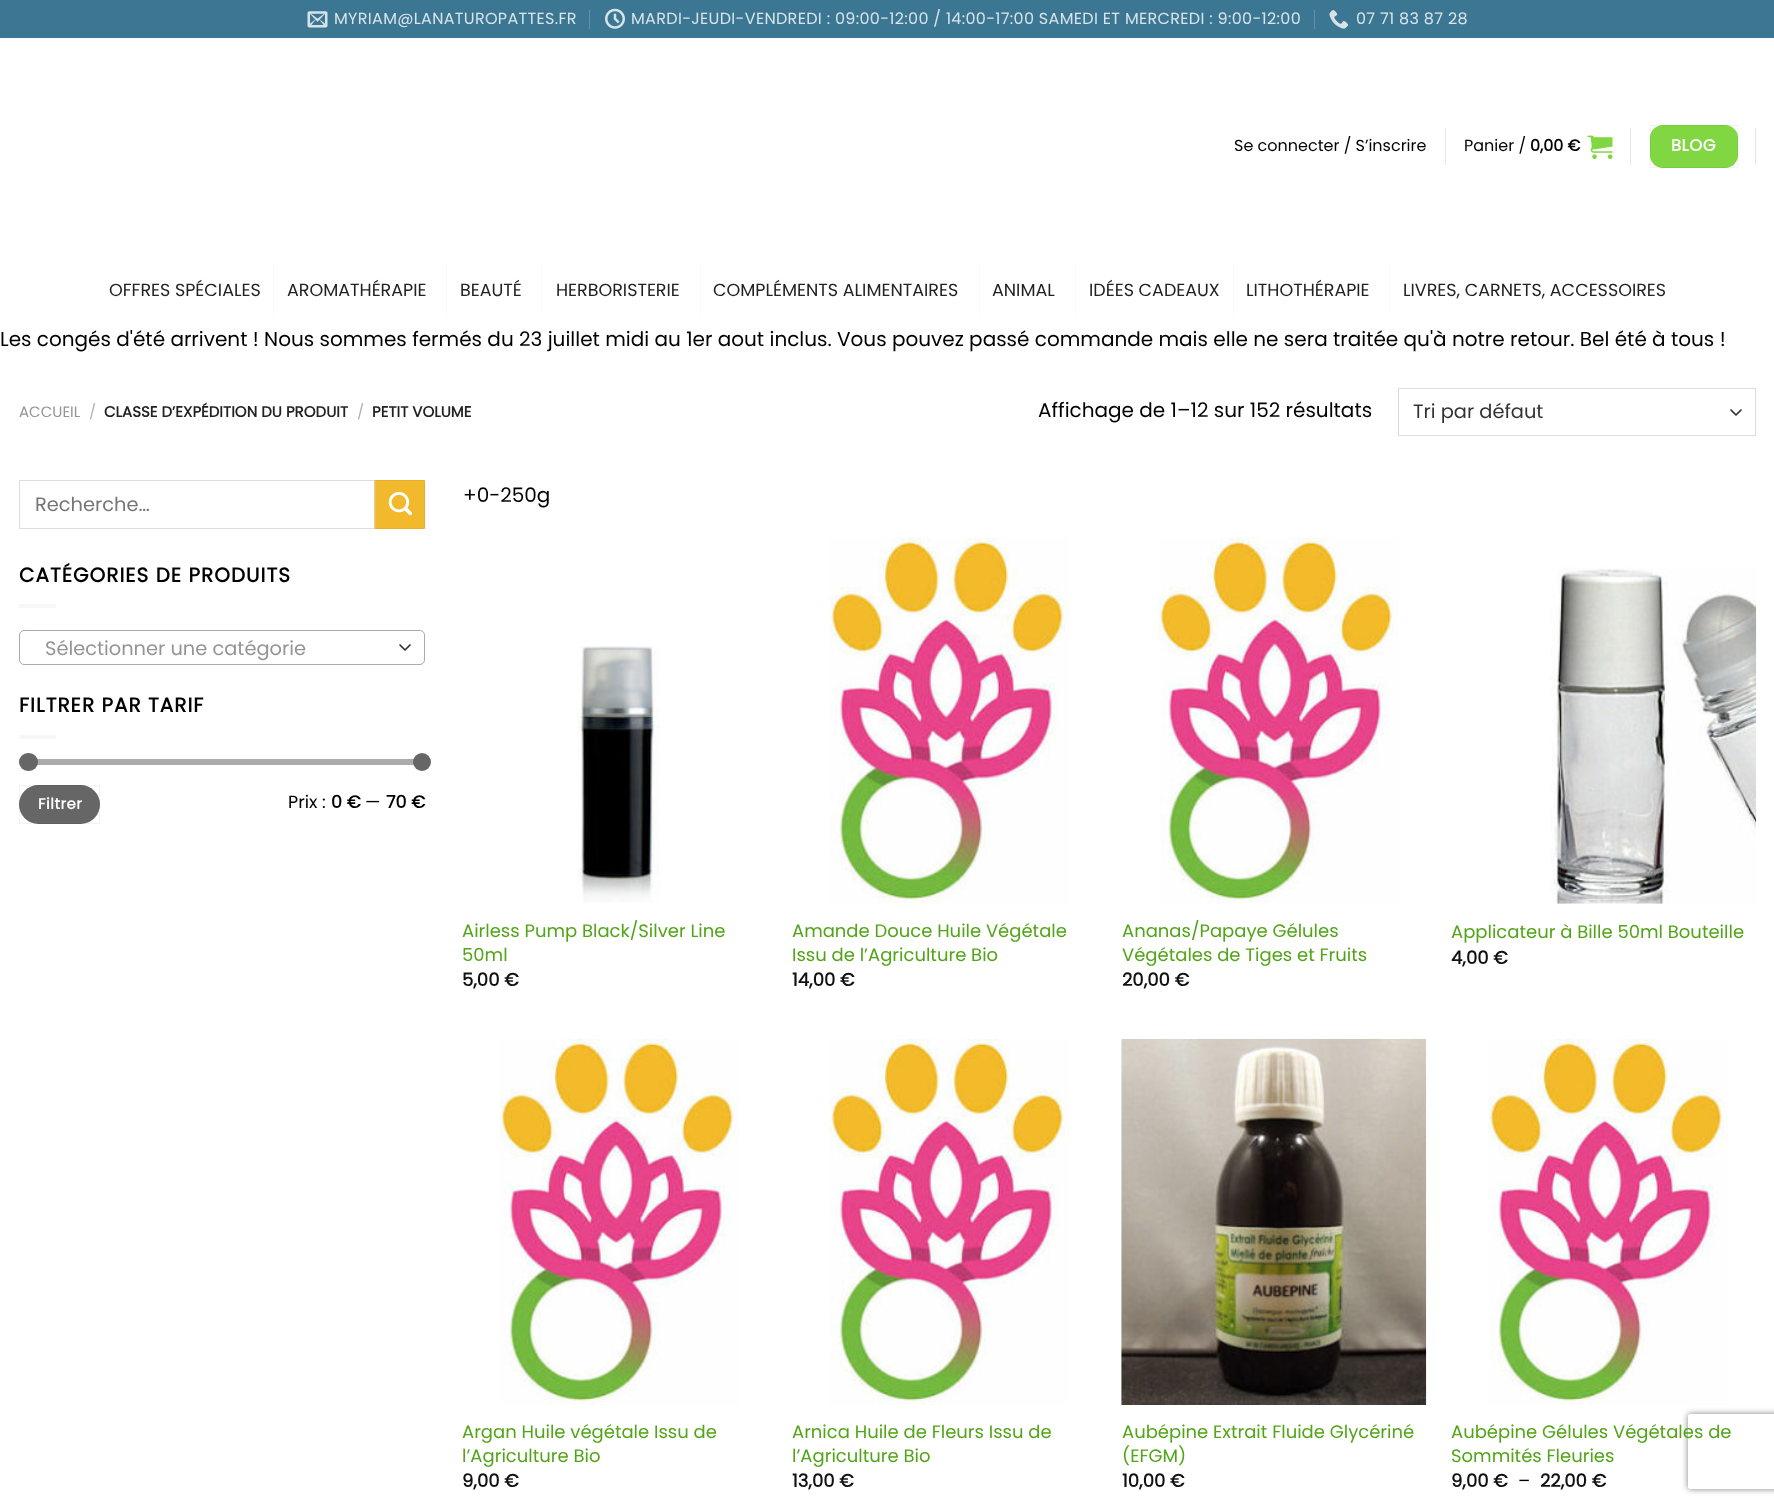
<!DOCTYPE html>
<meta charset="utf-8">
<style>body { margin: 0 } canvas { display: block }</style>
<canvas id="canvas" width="1774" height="1506"></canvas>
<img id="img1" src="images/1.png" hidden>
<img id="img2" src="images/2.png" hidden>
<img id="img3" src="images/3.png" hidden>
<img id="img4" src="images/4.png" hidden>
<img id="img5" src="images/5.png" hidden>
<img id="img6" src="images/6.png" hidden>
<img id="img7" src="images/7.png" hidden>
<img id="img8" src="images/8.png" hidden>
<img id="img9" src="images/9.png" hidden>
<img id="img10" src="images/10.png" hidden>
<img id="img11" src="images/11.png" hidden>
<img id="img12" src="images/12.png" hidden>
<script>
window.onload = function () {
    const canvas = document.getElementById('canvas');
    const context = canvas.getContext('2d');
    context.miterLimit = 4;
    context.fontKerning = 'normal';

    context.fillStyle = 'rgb(255, 255, 255)';
    context.fillRect(0, 0, 1774, 1506);
    context.fillStyle = 'rgb(59, 118, 147)';
    context.fillRect(0, 0, 1774, 38);
    context.drawImage(document.getElementById('img1'), 307, 11, 21, 17);
    context.fillStyle = 'rgb(98, 145, 169)';
    context.fillRect(589, 10, 1, 19);
    context.drawImage(document.getElementById('img2'), 605, 8, 20, 21);
    context.fillRect(1314, 10, 1, 19);
    context.drawImage(document.getElementById('img3'), 1329, 10, 20, 19);
    context.fillStyle = 'rgb(230, 230, 230)';
    context.fillRect(1445, 128, 1, 37);
    context.drawImage(document.getElementById('img4'), 1587, 135, 26, 24);
    context.fillRect(1630, 128, 1, 37);
    context.fillStyle = 'rgb(129, 215, 66)';
    context.beginPath();
    context.roundRect(1650, 125, 88, 43, 13);
    context.fill();
    context.strokeStyle = 'rgba(0, 0, 0, 0.05)';
    context.strokeRect(1650.5, 125.5, 87, 42);
    context.fillStyle = 'rgb(230, 230, 230)';
    context.fillRect(1755, 128, 1, 37);
    context.fillStyle = 'rgb(248, 248, 248)';
    context.fillRect(273, 264, 1, 50);
    context.fillRect(446, 264, 1, 50);
    context.fillRect(541, 264, 1, 50);
    context.fillRect(700, 264, 1, 50);
    context.fillRect(979, 264, 1, 50);
    context.fillRect(1075, 264, 1, 50);
    context.fillRect(1233, 264, 1, 50);
    context.fillRect(1389, 264, 1, 50);
    context.beginPath();
    context.moveTo(1731, 410);
    context.lineTo(1736, 415);
    context.lineTo(1741, 410);
    context.strokeStyle = 'rgb(51, 51, 51)';
    context.lineWidth = 1.7;
    context.lineCap = 'round';
    context.lineJoin = 'round';
    context.stroke();
    context.strokeStyle = 'rgb(221, 221, 221)';
    context.lineWidth = 1;
    context.lineJoin = 'miter';
    context.strokeRect(1398.5, 388.5, 357, 47);
    context.strokeRect(19.5, 480.5, 355, 48);
    context.fillStyle = 'rgb(242, 185, 44)';
    context.beginPath();
    context.rect(375.5, 480.5, 49, 48);
    context.fill();
    context.strokeStyle = 'rgb(230, 176, 42)';
    context.stroke();
    context.drawImage(document.getElementById('img5'), 388, 491, 24, 25);
    context.fillStyle = 'rgb(247, 247, 247)';
    context.fillRect(19, 604, 37, 4);
    context.beginPath();
    context.moveTo(400, 645);
    context.lineTo(405, 650);
    context.lineTo(410, 645);
    context.strokeStyle = 'rgb(51, 51, 51)';
    context.lineWidth = 1.7;
    context.lineJoin = 'round';
    context.stroke();
    context.beginPath();
    context.roundRect(19.5, 630.5, 405, 34, 4.5);
    context.strokeStyle = 'rgb(170, 170, 170)';
    context.lineWidth = 1;
    context.lineJoin = 'miter';
    context.stroke();
    context.fillRect(19, 735, 37, 4);
    context.fillStyle = 'rgb(241, 241, 241)';
    context.beginPath();
    context.roundRect(19, 759, 406, 6, 3);
    context.fill();
    context.fillStyle = 'rgba(102, 102, 102, 0.5)';
    context.beginPath();
    context.roundRect(19, 759, 406, 6, 3);
    context.fill();
    context.fillStyle = 'rgb(102, 102, 102)';
    context.beginPath();
    context.roundRect(19, 753, 19, 18, 9);
    context.fill();
    context.beginPath();
    context.arc(422, 762, 9, 0, 2 * Math.PI);
    context.fill();
    context.beginPath();
    context.roundRect(19, 785, 81, 39, 19.5);
    context.fill();
    context.strokeStyle = 'rgba(0, 0, 0, 0.05)';
    context.strokeRect(19.5, 785.5, 80, 38);
    context.drawImage(document.getElementById('img6'), 577, 646, 83, 257);
    context.drawImage(document.getElementById('img7'), 829, 537, 240, 367);
    context.drawImage(document.getElementById('img8'), 1158, 537, 240, 367);
    context.drawImage(document.getElementById('img9'), 1550, 567, 207, 337);
    context.drawImage(document.getElementById('img10'), 499, 1039, 240, 366);
    context.drawImage(document.getElementById('img10'), 829, 1039, 240, 366);
    context.drawImage(document.getElementById('img11'), 1121, 1038, 306, 367);
    context.drawImage(document.getElementById('img12'), 1488, 1039, 240, 366);
    context.save();
    context.beginPath();
    context.moveTo(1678, 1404);
    context.lineTo(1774, 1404);
    context.lineTo(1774, 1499);
    context.lineTo(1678, 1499);
    context.closePath();
    context.moveTo(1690.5, 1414);
    context.lineTo(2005.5, 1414);
    context.bezierCurveTo(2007, 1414, 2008, 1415, 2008, 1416.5);
    context.lineTo(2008, 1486.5);
    context.bezierCurveTo(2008, 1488, 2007, 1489, 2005.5, 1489);
    context.lineTo(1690.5, 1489);
    context.bezierCurveTo(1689, 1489, 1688, 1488, 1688, 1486.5);
    context.lineTo(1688, 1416.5);
    context.bezierCurveTo(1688, 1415, 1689, 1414, 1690.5, 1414);
    context.closePath();
    context.clip('evenodd');
    context.fillStyle = 'rgb(128, 128, 128)';
    context.filter = 'blur(3px)';
    context.beginPath();
    context.roundRect(1688, 1414, 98, 75, 2.5);
    context.fill();
    context.filter = 'none';
    context.restore();
    context.letterSpacing = '0.32px';
    context.font = '16px Poppins';
    context.fillStyle = 'rgb(216, 228, 233)';
    context.fillText('MYRIAM@LANATUROPATTES.FR', 334, 24);
    context.fillText('MARDI-JEUDI-VENDREDI : 09:00-12:00 / 14:00-17:00 SAMEDI ET MERCREDI : 9:00-12:00', 631, 24);
    context.fillText('07 71 83 87 28', 1356, 24);
    context.letterSpacing = '0px';
    context.fillStyle = 'rgb(0, 0, 0)';
    context.fillText('Se connecter / S’inscrire', 1234, 151);
    context.fillText('Panier /', 1464, 151);
    context.font = 'bold 16px Poppins';
    context.fillText('0,00 €', 1530, 151);
    context.letterSpacing = '0.5px';
    context.font = 'bold 16.5px Poppins';
    context.fillStyle = 'rgb(255, 255, 255)';
    context.fillText('BLOG', 1671, 151);
    context.letterSpacing = '0px';
    context.font = '17.5px Poppins';
    context.fillStyle = 'rgb(34, 34, 34)';
    context.fillText('OFFRES SPÉCIALES', 109, 296);
    context.fillText('AROMATHÉRAPIE', 287, 296);
    context.fillText('BEAUTÉ', 460, 296);
    context.fillText('HERBORISTERIE', 556, 296);
    context.fillText('COMPLÉMENTS ALIMENTAIRES', 713, 296);
    context.fillText('ANIMAL', 992, 296);
    context.fillText('IDÉES CADEAUX', 1089, 296);
    context.fillText('LITHOTHÉRAPIE', 1246, 296);
    context.fillText('LIVRES, CARNETS, ACCESSOIRES', 1403, 296);
    context.font = '20px Poppins';
    context.fillStyle = 'rgb(0, 0, 0)';
    context.fillText('Les congés d\'été arrivent ! Nous sommes fermés du 23 juillet midi au 1er aout inclus. Vous pouvez passé commande mais elle ne sera traitée qu\'à notre retour. Bel été à tous !', 0, 346);
    context.font = '15px Poppins';
    context.fillStyle = 'rgb(148, 148, 148)';
    context.fillText('ACCUEIL', 19, 417);
    context.fillStyle = 'rgb(178, 178, 178)';
    context.fillText('/', 89, 417);
    context.font = 'bold 15px Poppins';
    context.fillStyle = 'rgb(34, 34, 34)';
    context.fillText('CLASSE D’EXPÉDITION DU PRODUIT', 104, 417);
    context.font = '15px Poppins';
    context.fillStyle = 'rgb(178, 178, 178)';
    context.fillText('/', 357, 417);
    context.font = 'bold 15px Poppins';
    context.fillStyle = 'rgb(34, 34, 34)';
    context.fillText('PETIT VOLUME', 372, 417);
    context.font = '20px Poppins';
    context.fillStyle = 'rgb(0, 0, 0)';
    context.fillText('Affichage de 1–12 sur 152 résultats', 1038, 417);
    context.font = '19.4px Poppins';
    context.fillStyle = 'rgb(51, 51, 51)';
    context.fillText('Tri par défaut', 1413, 418);
    context.fillStyle = 'rgb(117, 117, 117)';
    context.fillText('Recherche…', 35, 511);
    context.letterSpacing = '1px';
    context.font = 'bold 20px Poppins';
    context.fillStyle = 'rgb(0, 0, 0)';
    context.fillText('CATÉGORIES DE PRODUITS', 19, 582);
    context.letterSpacing = '0px';
    context.font = '19.4px Poppins';
    context.fillStyle = 'rgb(148, 148, 148)';
    context.fillText('Sélectionner une catégorie', 45, 655);
    context.letterSpacing = '1px';
    context.font = 'bold 20px Poppins';
    context.fillStyle = 'rgb(0, 0, 0)';
    context.fillText('FILTRER PAR TARIF', 19, 712);
    context.letterSpacing = '0.5px';
    context.font = 'bold 15px Poppins';
    context.fillStyle = 'rgb(255, 255, 255)';
    context.fillText('Filtrer', 38, 809);
    context.letterSpacing = '0px';
    context.font = '17.5px Poppins';
    context.fillStyle = 'rgb(0, 0, 0)';
    context.fillText('Prix :', 288, 808);
    context.font = 'bold 17.5px Poppins';
    context.fillText('0 €', 331, 808);
    context.font = '17.5px Poppins';
    context.fillText('—', 365, 808);
    context.font = 'bold 17.5px Poppins';
    context.fillText('70 €', 386, 808);
    context.font = '20px Poppins';
    context.fillText('+0-250g', 463, 502);
    context.font = '18px Poppins';
    context.fillStyle = 'rgb(82, 164, 24)';
    context.fillText('Airless Pump Black/Silver Line', 462, 937);
    context.fillText('50ml', 462, 961);
    context.font = 'bold 18px Poppins';
    context.fillStyle = 'rgb(17, 17, 17)';
    context.fillText('5,00 €', 462, 986);
    context.font = '18px Poppins';
    context.fillStyle = 'rgb(82, 164, 24)';
    context.fillText('Amande Douce Huile Végétale', 792, 937);
    context.fillText('Issu de l’Agriculture Bio', 792, 961);
    context.font = 'bold 18px Poppins';
    context.fillStyle = 'rgb(17, 17, 17)';
    context.fillText('14,00 €', 792, 986);
    context.font = '18px Poppins';
    context.fillStyle = 'rgb(82, 164, 24)';
    context.fillText('Ananas/Papaye Gélules', 1122, 937);
    context.fillText('Végétales de Tiges et Fruits', 1122, 961);
    context.font = 'bold 18px Poppins';
    context.fillStyle = 'rgb(17, 17, 17)';
    context.fillText('20,00 €', 1122, 986);
    context.font = '18px Poppins';
    context.fillStyle = 'rgb(82, 164, 24)';
    context.fillText('Applicateur à Bille 50ml Bouteille', 1451, 938);
    context.font = 'bold 18px Poppins';
    context.fillStyle = 'rgb(17, 17, 17)';
    context.fillText('4,00 €', 1451, 964);
    context.font = '18px Poppins';
    context.fillStyle = 'rgb(82, 164, 24)';
    context.fillText('Argan Huile végétale Issu de', 462, 1438);
    context.fillText('l’Agriculture Bio', 462, 1462);
    context.font = 'bold 18px Poppins';
    context.fillStyle = 'rgb(17, 17, 17)';
    context.fillText('9,00 €', 462, 1487);
    context.font = '18px Poppins';
    context.fillStyle = 'rgb(82, 164, 24)';
    context.fillText('Arnica Huile de Fleurs Issu de', 792, 1438);
    context.fillText('l’Agriculture Bio', 792, 1462);
    context.font = 'bold 18px Poppins';
    context.fillStyle = 'rgb(17, 17, 17)';
    context.fillText('13,00 €', 792, 1487);
    context.font = '18px Poppins';
    context.fillStyle = 'rgb(82, 164, 24)';
    context.fillText('Aubépine Extrait Fluide Glycériné', 1122, 1438);
    context.fillText('(EFGM)', 1122, 1462);
    context.font = 'bold 18px Poppins';
    context.fillStyle = 'rgb(17, 17, 17)';
    context.fillText('10,00 €', 1122, 1487);
    context.font = '18px Poppins';
    context.fillStyle = 'rgb(82, 164, 24)';
    context.fillText('Aubépine Gélules Végétales de', 1451, 1438);
    context.fillText('Sommités Fleuries', 1451, 1462);
    context.font = 'bold 18px Poppins';
    context.fillStyle = 'rgb(17, 17, 17)';
    context.fillText('9,00 €', 1451, 1487);
    context.font = '18px Poppins';
    context.fillStyle = 'rgb(0, 0, 0)';
    context.fillText('–', 1518, 1487);
    context.font = 'bold 18px Poppins';
    context.fillStyle = 'rgb(17, 17, 17)';
    context.fillText('22,00 €', 1540, 1487);
};
</script>
